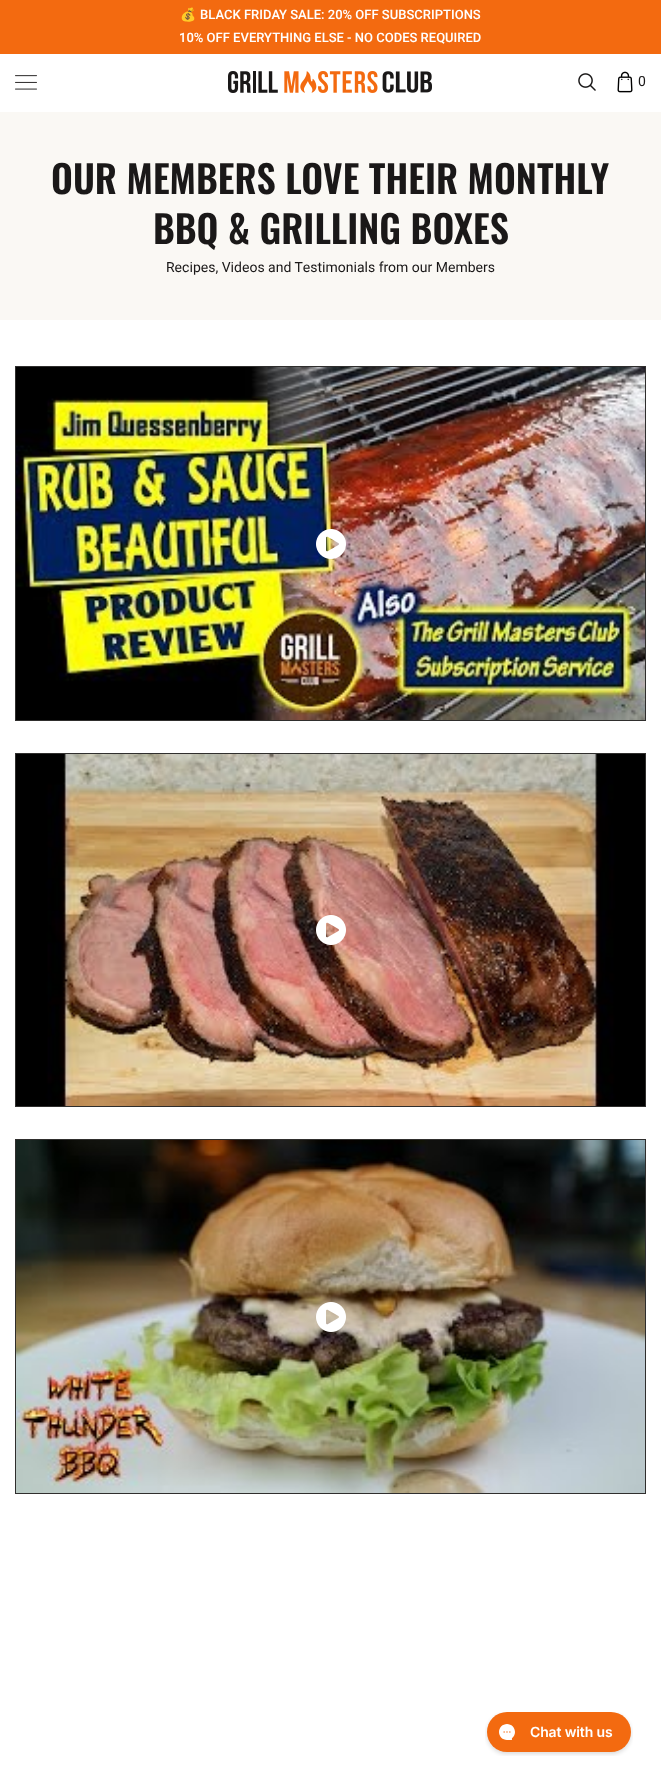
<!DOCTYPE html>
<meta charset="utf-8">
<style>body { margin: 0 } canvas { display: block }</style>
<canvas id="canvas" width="661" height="1779"></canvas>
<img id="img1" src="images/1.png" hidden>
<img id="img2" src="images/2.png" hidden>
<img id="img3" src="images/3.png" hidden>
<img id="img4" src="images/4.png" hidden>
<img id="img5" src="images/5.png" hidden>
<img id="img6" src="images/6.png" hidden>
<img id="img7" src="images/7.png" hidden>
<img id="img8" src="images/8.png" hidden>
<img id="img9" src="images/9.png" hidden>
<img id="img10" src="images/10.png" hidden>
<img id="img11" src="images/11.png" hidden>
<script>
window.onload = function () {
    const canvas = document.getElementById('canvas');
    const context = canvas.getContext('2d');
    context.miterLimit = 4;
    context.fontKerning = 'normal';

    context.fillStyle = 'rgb(255, 255, 255)';
    context.fillRect(0, 0, 661, 1779);
    context.fillStyle = 'rgb(243, 106, 16)';
    context.fillRect(0, 0, 661, 54);
    context.drawImage(document.getElementById('img1'), 15, 75, 22, 15);
    context.drawImage(document.getElementById('img2'), 228, 71, 204, 22);
    context.drawImage(document.getElementById('img3'), 578, 73, 18, 18);
    context.drawImage(document.getElementById('img4'), 617, 71, 16, 22);
    context.fillStyle = 'rgb(250, 248, 244)';
    context.fillRect(0, 112, 661, 208);
    context.strokeStyle = 'rgb(47, 46, 45)';
    context.strokeRect(15.5, 366.5, 630, 354);
    context.drawImage(document.getElementById('img5'), 16, 367, 629, 353);
    context.drawImage(document.getElementById('img6'), 316, 529, 30, 30);
    context.strokeRect(15.5, 753.5, 630, 353);
    context.drawImage(document.getElementById('img7'), 16, 754, 629, 352);
    context.drawImage(document.getElementById('img8'), 316, 915, 30, 30);
    context.strokeRect(15.5, 1139.5, 630, 354);
    context.drawImage(document.getElementById('img9'), 16, 1140, 629, 353);
    context.drawImage(document.getElementById('img10'), 316, 1302, 30, 30);
    context.drawImage(document.getElementById('img11'), 485, 1712, 148, 44);
    context.font = '13px Noto Color Emoji';
    context.fillStyle = 'rgb(255, 255, 255)';
    context.fillText('💰', 180, 19);
    context.font = '500 13px Heebo';
    context.fillText('BLACK FRIDAY SALE: 20% OFF SUBSCRIPTIONS', 200, 19);
    context.fillText('10% OFF EVERYTHING ELSE - NO CODES REQUIRED', 179, 42);
    context.font = '14px Heebo';
    context.fillStyle = 'rgb(26, 24, 24)';
    context.fillText('0', 638, 86);
    context.font = '600 38px Oswald';
    context.fillText('OUR MEMBERS LOVE THEIR MONTHLY', 51, 194);
    context.fillText('BBQ & GRILLING BOXES', 153, 244);
    context.font = '14px Heebo';
    context.fillText('Recipes, Videos and Testimonials from our Members', 166, 272);
};
</script>
